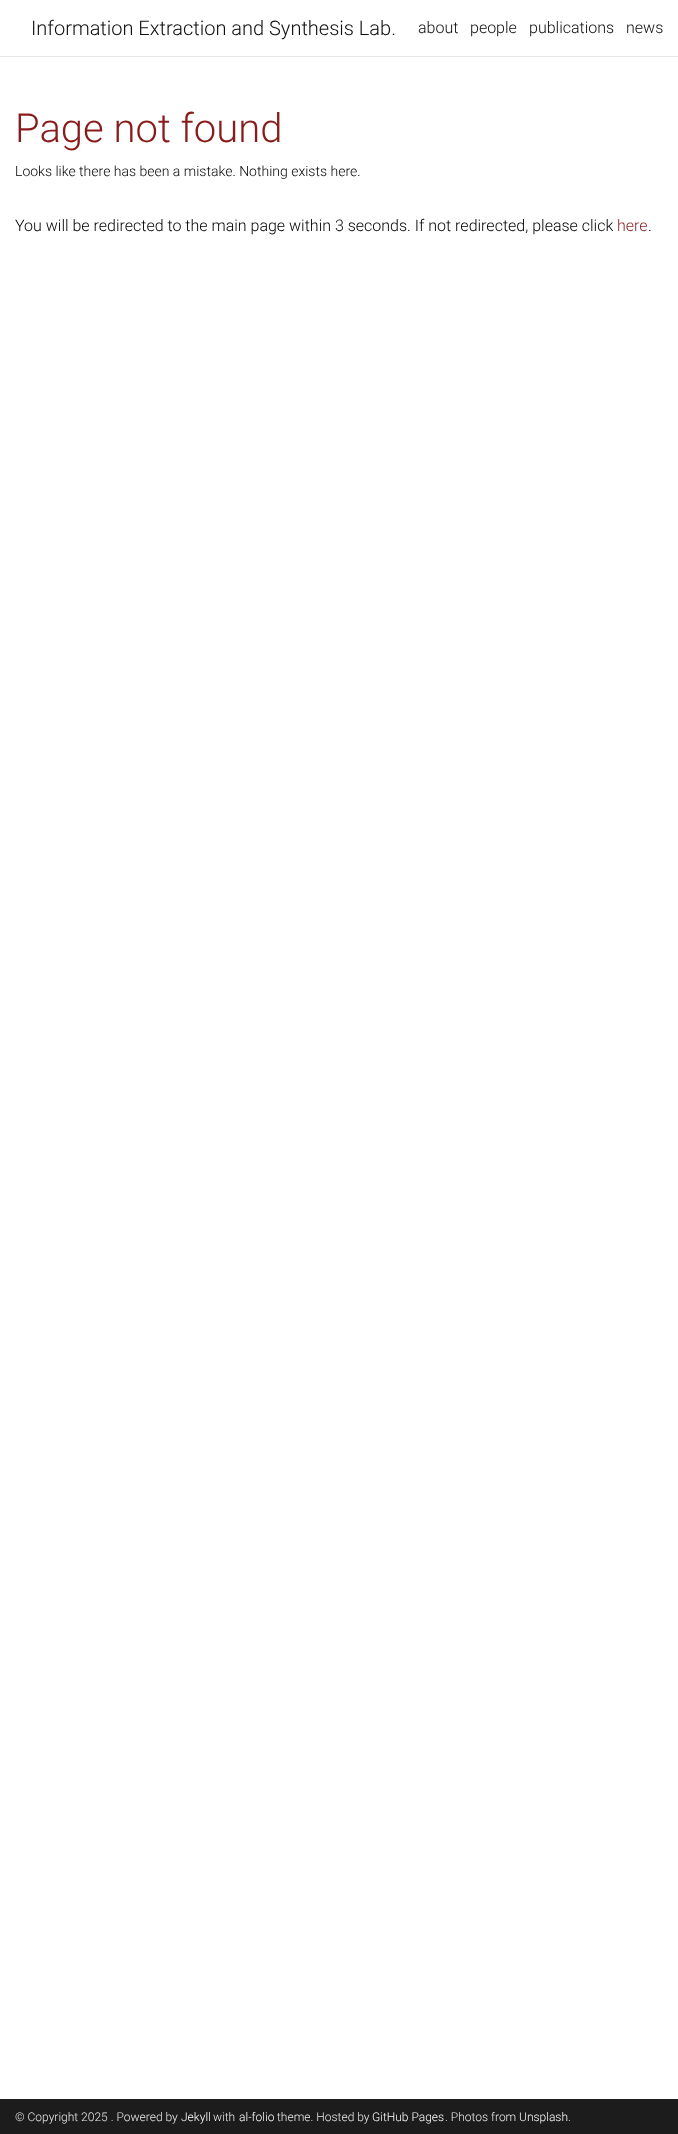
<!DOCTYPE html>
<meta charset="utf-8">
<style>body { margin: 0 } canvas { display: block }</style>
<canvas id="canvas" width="678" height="2134"></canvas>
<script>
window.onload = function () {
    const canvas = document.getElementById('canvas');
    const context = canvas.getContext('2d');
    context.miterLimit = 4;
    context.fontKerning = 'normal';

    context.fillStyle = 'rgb(255, 255, 255)';
    context.fillRect(0, 0, 678, 2134);
    context.fillStyle = 'rgb(231, 231, 231)';
    context.fillRect(0, 56, 678, 1);
    context.fillStyle = 'rgb(28, 28, 29)';
    context.fillRect(0, 2099, 678, 35);
    context.font = '300 20px Roboto';
    context.fillStyle = 'rgb(13, 13, 13)';
    context.fillText('Information Extraction and Synthesis Lab.', 31, 35);
    context.font = '300 16px Roboto';
    context.fillText('about', 418, 33);
    context.fillText('people', 470, 33);
    context.fillText('publications', 529, 33);
    context.fillText('news', 626, 33);
    context.font = '300 40px Roboto';
    context.fillStyle = 'rgb(136, 28, 28)';
    context.fillText('Page not found', 15, 142);
    context.font = '300 14px Roboto';
    context.fillStyle = 'rgb(0, 0, 0)';
    context.fillText('Looks like there has been a mistake. Nothing exists here.', 15, 176);
    context.font = '300 16px Roboto';
    context.fillText('You will be redirected to the main page within 3 seconds. If not redirected, please click', 15, 231);
    context.fillStyle = 'rgb(136, 28, 28)';
    context.fillText('here', 617, 231);
    context.fillStyle = 'rgb(0, 0, 0)';
    context.fillText('.', 648, 231);
    context.font = '300 12px Roboto';
    context.fillStyle = 'rgb(232, 232, 232)';
    context.fillText('© Copyright 2025 . Powered by', 15, 2121);
    context.fillStyle = 'rgb(255, 255, 255)';
    context.fillText('Jekyll', 181, 2121);
    context.fillStyle = 'rgb(232, 232, 232)';
    context.fillText('with', 213, 2121);
    context.fillStyle = 'rgb(255, 255, 255)';
    context.fillText('al-folio', 239, 2121);
    context.fillStyle = 'rgb(232, 232, 232)';
    context.fillText('theme. Hosted by', 277, 2121);
    context.fillStyle = 'rgb(255, 255, 255)';
    context.fillText('GitHub Pages', 372, 2121);
    context.fillStyle = 'rgb(232, 232, 232)';
    context.fillText('. Photos from', 445, 2121);
    context.fillStyle = 'rgb(255, 255, 255)';
    context.fillText('Unsplash', 519, 2121);
    context.fillStyle = 'rgb(232, 232, 232)';
    context.fillText('.', 568, 2121);
};
</script>
